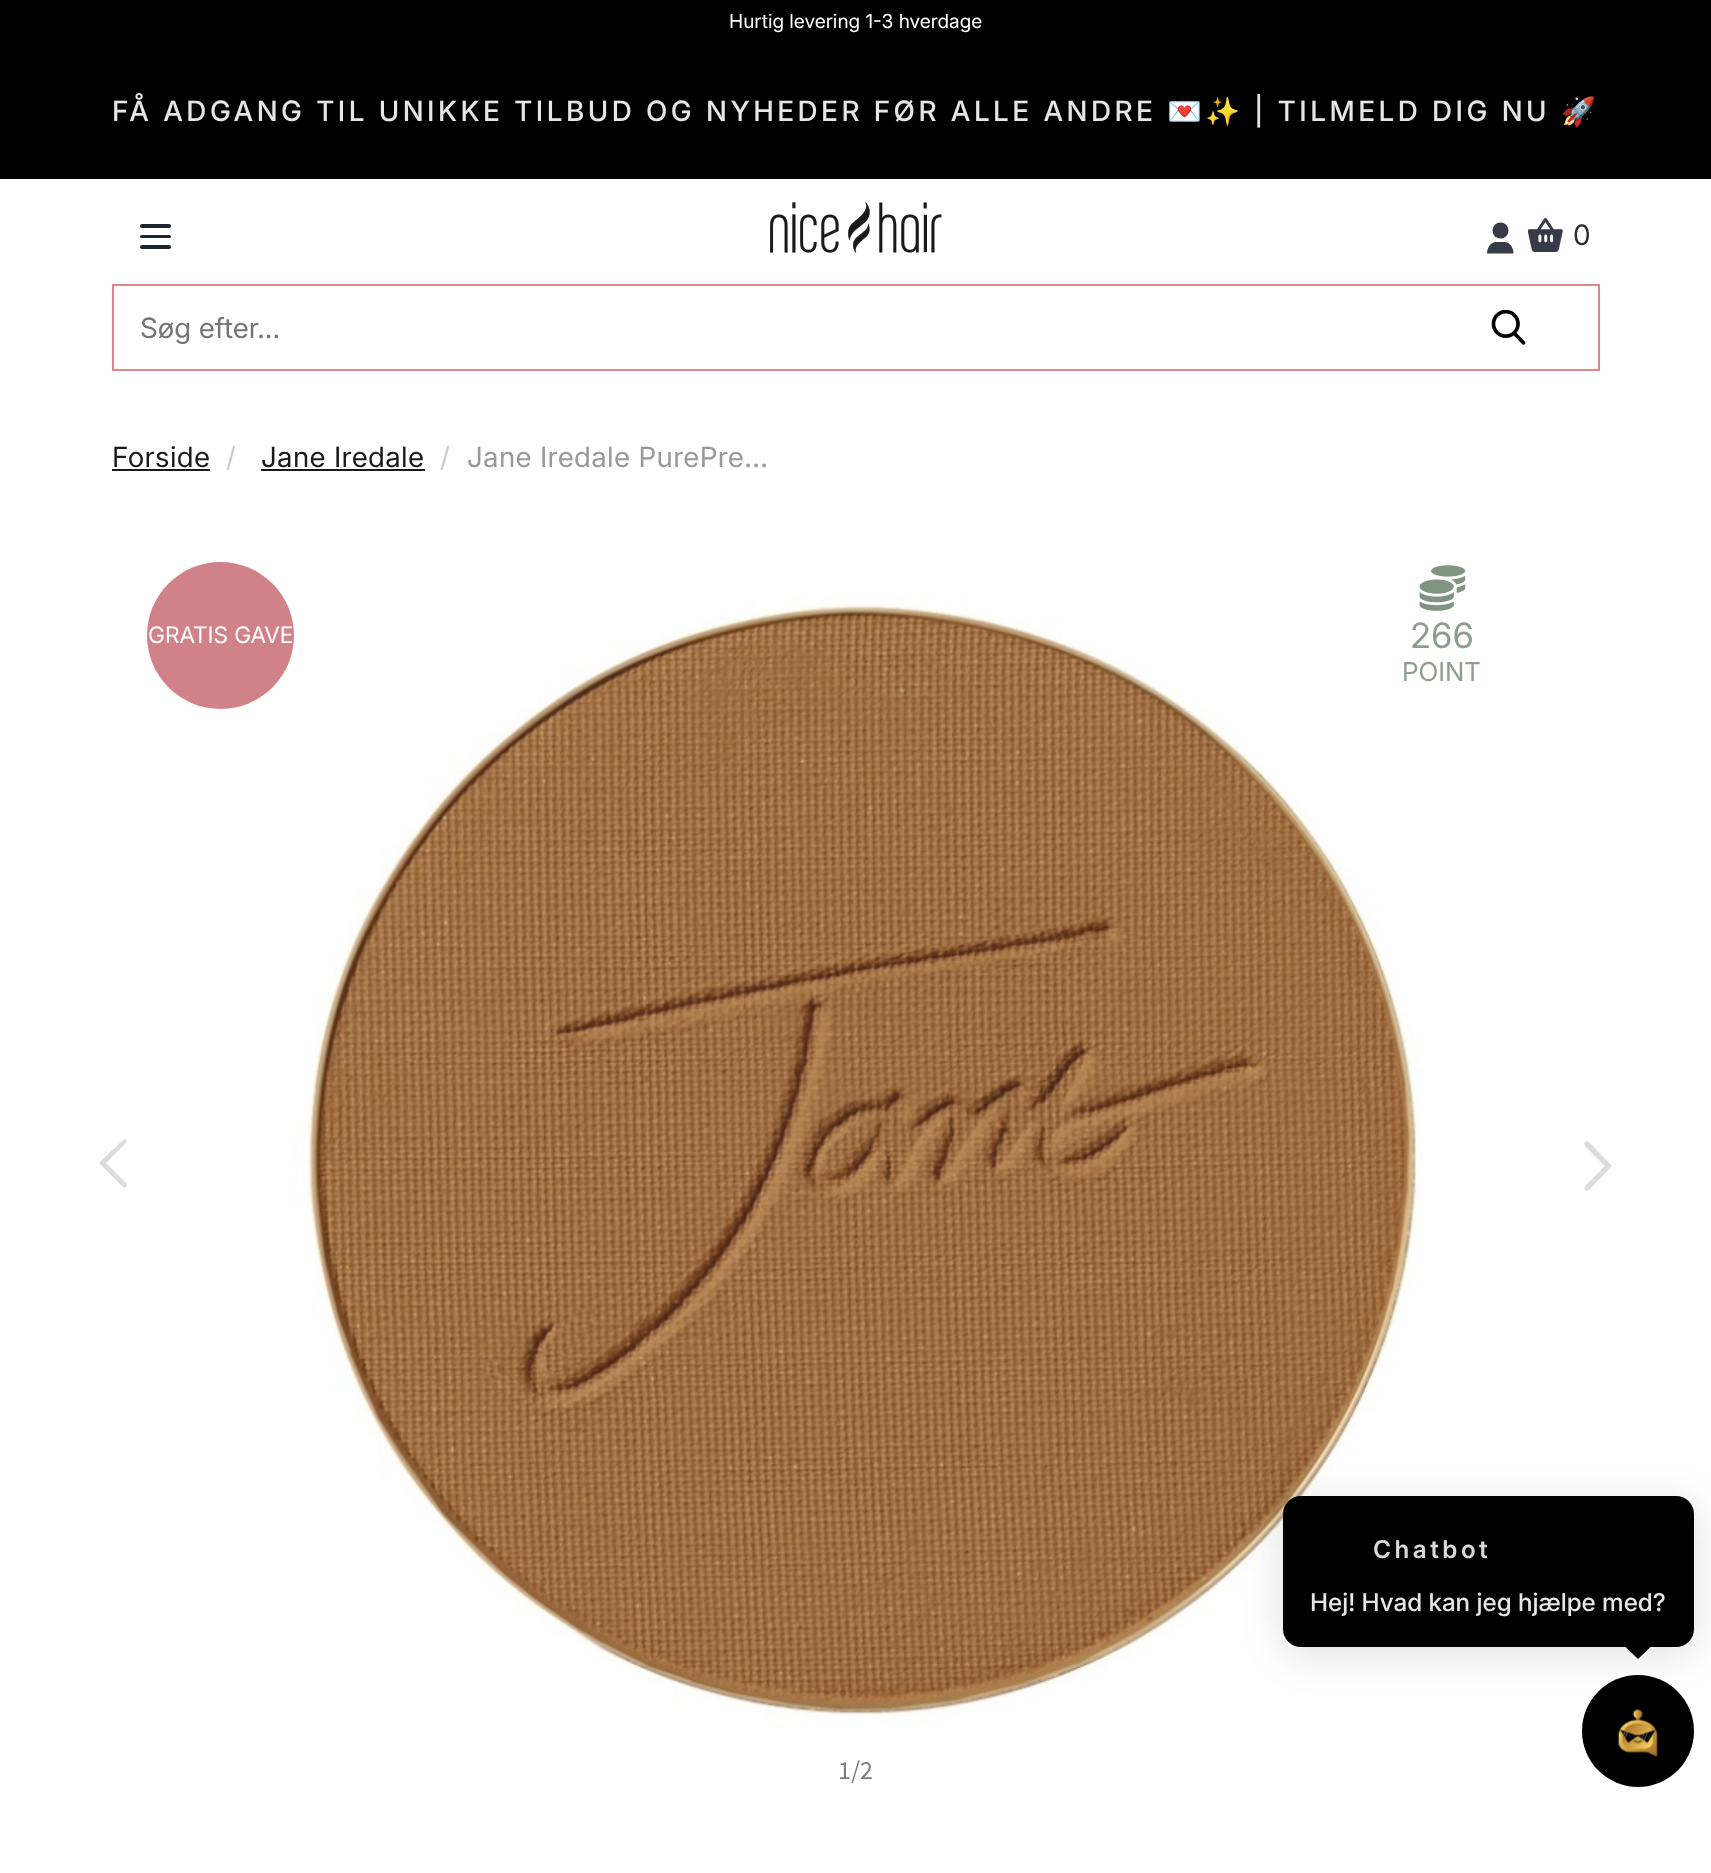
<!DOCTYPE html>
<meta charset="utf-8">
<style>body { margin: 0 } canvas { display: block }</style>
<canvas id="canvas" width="1711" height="1873"></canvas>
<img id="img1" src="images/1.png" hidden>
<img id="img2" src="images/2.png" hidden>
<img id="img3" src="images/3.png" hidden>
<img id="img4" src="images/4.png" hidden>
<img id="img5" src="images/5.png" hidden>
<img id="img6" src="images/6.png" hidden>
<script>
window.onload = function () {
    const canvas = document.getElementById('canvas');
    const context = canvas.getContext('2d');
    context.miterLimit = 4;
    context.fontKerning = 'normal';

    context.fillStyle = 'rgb(255, 255, 255)';
    context.fillRect(0, 0, 1711, 1873);
    context.fillStyle = 'rgb(0, 0, 0)';
    context.fillRect(0, 0, 1711, 42);
    context.fillStyle = 'rgb(0, 0, 1)';
    context.fillRect(0, 42, 1711, 137);
    context.fillStyle = 'rgb(31, 35, 47)';
    context.beginPath();
    context.roundRect(140, 224, 31, 4, 2);
    context.fill();
    context.beginPath();
    context.roundRect(140, 235, 31, 3, 1.5);
    context.fill();
    context.beginPath();
    context.roundRect(140, 245, 31, 4, 2);
    context.fill();
    context.drawImage(document.getElementById('img1'), 770, 202, 172, 51);
    context.fillStyle = 'rgb(54, 59, 73)';
    context.beginPath();
    context.arc(1500.5, 230.5, 8, 0, 2 * Math.PI);
    context.fill();
    context.beginPath();
    context.moveTo(1487, 253.5);
    context.bezierCurveTo(1487, 247.5, 1491, 242, 1496, 242);
    context.lineTo(1504.5, 242);
    context.bezierCurveTo(1509.5, 242, 1513.5, 247.5, 1513.5, 253.5);
    context.fill();
    context.drawImage(document.getElementById('img2'), 1528, 218, 35, 34);
    context.drawImage(document.getElementById('img3'), 1491, 310, 35, 35);
    context.strokeStyle = 'rgb(224, 133, 140)';
    context.lineWidth = 2;
    context.strokeRect(113, 285, 1486, 85);
    context.fillStyle = 'rgb(26, 26, 26)';
    context.fillRect(112, 469, 98, 2);
    context.fillRect(261, 469, 164, 2);
    context.drawImage(document.getElementById('img4'), 289, 595, 1134, 1134);
    context.fillStyle = 'rgb(209, 130, 136)';
    context.beginPath();
    context.arc(220.5, 635.5, 73.5, 0, 2 * Math.PI);
    context.fill();
    context.drawImage(document.getElementById('img5'), 1419, 565, 47, 46);
    context.fillStyle = 'rgb(220, 220, 220)';
    context.beginPath();
    context.moveTo(99, 1163);
    context.lineTo(123, 1140);
    context.bezierCurveTo(124, 1139, 125, 1139, 126, 1140);
    context.bezierCurveTo(127, 1141, 127, 1142, 126, 1143);
    context.lineTo(106, 1163);
    context.lineTo(126, 1183);
    context.bezierCurveTo(127, 1184, 127, 1186, 126, 1187);
    context.bezierCurveTo(125, 1188, 124, 1188, 123, 1187);
    context.closePath();
    context.fill();
    context.beginPath();
    context.moveTo(1612, 1166);
    context.lineTo(1589, 1190);
    context.bezierCurveTo(1588, 1191, 1586, 1191, 1585, 1190);
    context.bezierCurveTo(1584, 1189, 1584, 1187, 1585, 1186);
    context.lineTo(1605, 1166);
    context.lineTo(1585, 1146);
    context.bezierCurveTo(1584, 1145, 1584, 1143, 1585, 1142);
    context.bezierCurveTo(1586, 1141, 1588, 1141, 1589, 1142);
    context.closePath();
    context.fill();
    context.fillStyle = 'rgb(0, 0, 0)';
    context.beginPath();
    context.arc(1638, 1731, 56, 0, 2 * Math.PI);
    context.fill();
    context.drawImage(document.getElementById('img6'), 1617, 1709, 41, 48);
    context.fillStyle = 'rgba(0, 0, 0, 0.12)';
    context.filter = 'blur(21px)';
    context.beginPath();
    context.roundRect(1283, 1503, 411, 151, 18);
    context.fill();
    context.filter = 'none';
    context.fillStyle = 'rgb(0, 0, 0)';
    context.beginPath();
    context.roundRect(1283, 1496, 411, 151, 18);
    context.fill();
    context.beginPath();
    context.moveTo(1638, 1634.5);
    context.lineTo(1650.5, 1647);
    context.lineTo(1638, 1659);
    context.lineTo(1625.5, 1647);
    context.closePath();
    context.fill();
    context.font = '19.25px Inter';
    context.fillStyle = 'rgb(255, 255, 255)';
    context.fillText('Hurtig levering 1-3 hverdage', 729, 28);
    context.letterSpacing = '3.5px';
    context.font = '500 28px Inter';
    context.fillStyle = 'rgb(230, 230, 230)';
    context.fillText('FÅ ADGANG TIL UNIKKE TILBUD OG NYHEDER FØR ALLE ANDRE', 112, 121);
    context.font = '28px Noto Color Emoji';
    context.fillText('💌✨', 1167, 121);
    context.font = '500 28px Inter';
    context.fillText('| TILMELD DIG NU', 1254, 121);
    context.font = '28px Noto Color Emoji';
    context.fillText('🚀', 1561, 121);
    context.letterSpacing = '0px';
    context.font = '28px Inter';
    context.fillStyle = 'rgb(44, 44, 44)';
    context.fillText('0', 1573, 245);
    context.fillStyle = 'rgb(117, 117, 117)';
    context.fillText('Søg efter...', 140, 338);
    context.letterSpacing = '0.35px';
    context.fillStyle = 'rgb(26, 26, 26)';
    context.fillText('Forside', 112, 467);
    context.fillStyle = 'rgb(204, 204, 204)';
    context.fillText('/', 226, 467);
    context.fillStyle = 'rgb(26, 26, 26)';
    context.fillText('Jane Iredale', 261, 467);
    context.fillStyle = 'rgb(204, 204, 204)';
    context.fillText('/', 440, 467);
    context.fillStyle = 'rgb(153, 153, 153)';
    context.fillText('Jane Iredale PurePre...', 467, 467);
    context.letterSpacing = '0px';
    context.font = '22.75px Inter';
    context.fillStyle = 'rgb(255, 255, 255)';
    context.fillText('GRATIS GAVE', 148, 643);
    context.font = '35px Inter';
    context.fillStyle = 'rgb(141, 158, 142)';
    context.fillText('266', 1410, 648);
    context.font = '26px Inter';
    context.fillText('POINT', 1402, 681);
    context.font = '26px Source Sans Pro';
    context.fillStyle = 'rgb(126, 126, 126)';
    context.fillText('1/2', 838, 1779);
    context.letterSpacing = '3.5px';
    context.font = '600 24.5px Inter';
    context.fillStyle = 'rgb(217, 217, 217)';
    context.fillText('Chatbot', 1373, 1558);
    context.letterSpacing = '0px';
    context.font = '500 24.5px Inter';
    context.fillStyle = 'rgb(230, 230, 230)';
    context.fillText('Hej! Hvad kan jeg hjælpe med?', 1310, 1611);
};
</script>
